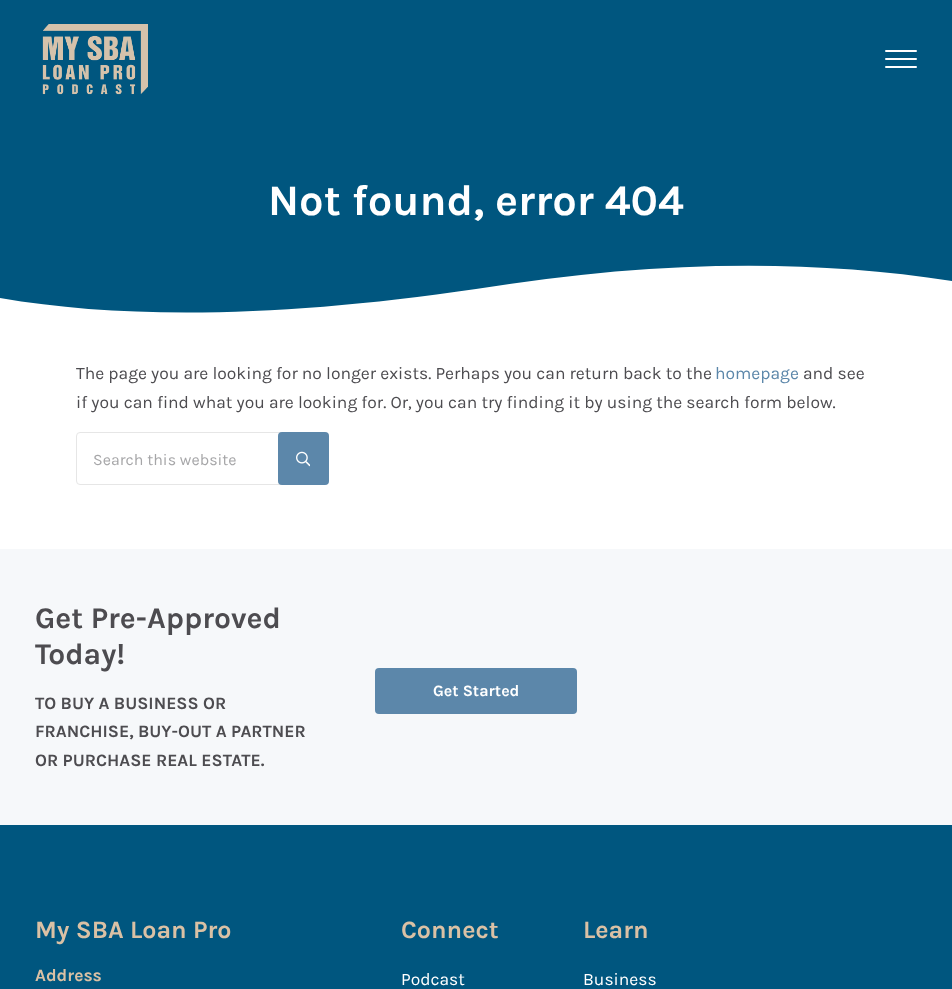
<!DOCTYPE html>
<meta charset="utf-8">
<style>body { margin: 0 } canvas { display: block }</style>
<canvas id="canvas" width="952" height="989"></canvas>
<img id="img1" src="images/1.png" hidden>
<img id="img2" src="images/2.png" hidden>
<script>
window.onload = function () {
    const canvas = document.getElementById('canvas');
    const context = canvas.getContext('2d');
    context.miterLimit = 4;
    context.fontKerning = 'normal';

    context.fillStyle = 'rgb(255, 255, 255)';
    context.fillRect(0, 0, 952, 989);
    context.fillStyle = 'rgb(0, 86, 127)';
    context.fillRect(0, 0, 952, 313);
    context.drawImage(document.getElementById('img1'), 42, 24, 106, 71);
    context.fillStyle = 'rgb(255, 255, 255)';
    context.beginPath();
    context.roundRect(885, 58, 32, 2, 1);
    context.fill();
    context.beginPath();
    context.roundRect(885, 50, 32, 2, 1);
    context.fill();
    context.beginPath();
    context.roundRect(885, 66, 32, 2, 1);
    context.fill();
    context.save();
    context.beginPath();
    context.rect(0, 264, 952, 50);
    context.clip();
    context.beginPath();
    context.moveTo(0, 298);
    context.bezierCurveTo(127, 320, 286, 317, 476, 289);
    context.bezierCurveTo(647, 261, 806, 258, 952, 281);
    context.lineTo(952, 315);
    context.lineTo(0, 315);
    context.closePath();
    context.fill();
    context.restore();
    context.beginPath();
    context.roundRect(76.5, 432.5, 223, 52, [3.5, 0, 0, 3.5]);
    context.strokeStyle = 'rgb(230, 230, 230)';
    context.stroke();
    context.fillStyle = 'rgb(92, 135, 170)';
    context.beginPath();
    context.roundRect(278, 432, 51, 53, 4);
    context.fill();
    context.drawImage(document.getElementById('img2'), 296, 451, 14, 16);
    context.fillStyle = 'rgb(246, 248, 250)';
    context.fillRect(0, 549, 952, 276);
    context.fillStyle = 'rgb(92, 135, 170)';
    context.beginPath();
    context.roundRect(375, 668, 202, 46, 4);
    context.fill();
    context.fillStyle = 'rgb(0, 86, 127)';
    context.fillRect(0, 825, 952, 164);
    context.font = 'bold 43.4px Karla';
    context.fillStyle = 'rgb(255, 255, 255)';
    context.fillText('Not found, error 404', 268, 215);
    context.font = '17.45px Karla';
    context.fillStyle = 'rgb(77, 76, 80)';
    context.fillText('The page you are looking for no longer exists. Perhaps you can return back to the', 76, 379);
    context.fillStyle = 'rgb(92, 135, 170)';
    context.fillText('homepage', 715, 379);
    context.fillStyle = 'rgb(77, 76, 80)';
    context.fillText('and see', 803, 379);
    context.fillText('if you can find what you are looking for. Or, you can try finding it by using the search form below.', 76, 408);
    context.font = '16px Karla';
    context.fillStyle = 'rgb(166, 166, 168)';
    context.fillText('Search this website', 93, 465);
    context.font = 'bold 30px Karla';
    context.fillStyle = 'rgb(77, 76, 80)';
    context.fillText('Get Pre-Approved', 35, 628);
    context.fillText('Today!', 35, 664);
    context.font = 'bold 17.45px Karla';
    context.fillText('TO BUY A BUSINESS OR', 35, 709);
    context.fillText('FRANCHISE, BUY-OUT A PARTNER', 35, 737);
    context.fillText('OR PURCHASE REAL ESTATE.', 35, 766);
    context.font = 'bold 16px Karla';
    context.fillStyle = 'rgb(255, 255, 255)';
    context.fillText('Get Started', 433, 696);
    context.font = 'bold 25px Karla';
    context.fillStyle = 'rgb(218, 193, 165)';
    context.fillText('My SBA Loan Pro', 35, 938);
    context.font = 'bold 17.45px Karla';
    context.fillText('Address', 35, 981);
    context.font = 'bold 25px Karla';
    context.fillText('Connect', 401, 938);
    context.font = '17.45px Karla';
    context.fillStyle = 'rgb(255, 255, 255)';
    context.fillText('Podcast', 401, 985);
    context.font = 'bold 25px Karla';
    context.fillStyle = 'rgb(218, 193, 165)';
    context.fillText('Learn', 583, 938);
    context.font = '17.45px Karla';
    context.fillStyle = 'rgb(255, 255, 255)';
    context.fillText('Business', 583, 985);
};
</script>
